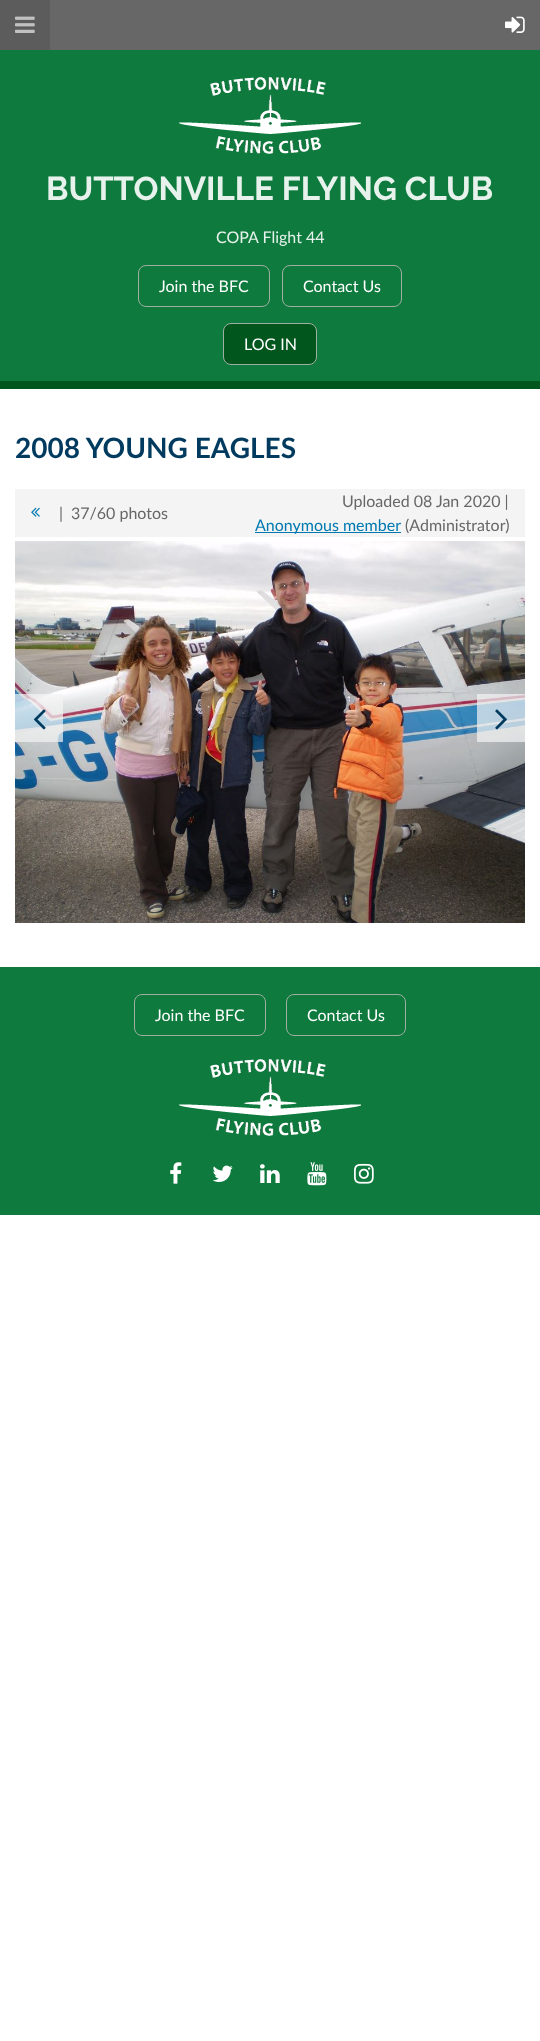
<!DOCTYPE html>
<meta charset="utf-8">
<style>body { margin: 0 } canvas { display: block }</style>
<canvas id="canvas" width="540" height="2041"></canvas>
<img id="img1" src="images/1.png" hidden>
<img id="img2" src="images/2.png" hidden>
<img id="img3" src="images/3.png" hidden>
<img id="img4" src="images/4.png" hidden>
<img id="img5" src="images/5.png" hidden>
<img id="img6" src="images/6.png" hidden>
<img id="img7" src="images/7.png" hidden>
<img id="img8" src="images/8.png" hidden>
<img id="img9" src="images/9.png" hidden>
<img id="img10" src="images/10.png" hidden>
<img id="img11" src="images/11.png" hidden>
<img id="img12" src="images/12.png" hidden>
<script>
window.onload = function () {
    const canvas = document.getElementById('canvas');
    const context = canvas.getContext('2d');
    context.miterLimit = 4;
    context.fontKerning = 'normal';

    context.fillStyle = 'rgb(255, 255, 255)';
    context.fillRect(0, 0, 540, 2041);
    context.fillStyle = 'rgb(103, 103, 103)';
    context.fillRect(50, 0, 490, 50);
    context.fillStyle = 'rgb(92, 92, 92)';
    context.fillRect(0, 0, 50, 50);
    context.drawImage(document.getElementById('img1'), 15, 16, 20, 17);
    context.drawImage(document.getElementById('img2'), 505, 16, 20, 17);
    context.fillStyle = 'rgb(14, 122, 61)';
    context.fillRect(0, 50, 540, 331);
    context.drawImage(document.getElementById('img3'), 179, 77, 182, 77);
    context.beginPath();
    context.roundRect(138.5, 265.5, 131, 41, 7.5);
    context.strokeStyle = 'rgb(159, 175, 162)';
    context.stroke();
    context.beginPath();
    context.roundRect(282.5, 265.5, 119, 41, 7.5);
    context.stroke();
    context.fillStyle = 'rgb(0, 86, 29)';
    context.beginPath();
    context.roundRect(223.5, 323.5, 93, 41, 7.5);
    context.fill();
    context.stroke();
    context.fillRect(0, 381, 540, 8);
    context.fillStyle = 'rgb(244, 244, 244)';
    context.fillRect(15, 489, 510, 48);
    context.drawImage(document.getElementById('img4'), 31, 507, 9, 10);
    context.fillStyle = 'rgb(0, 121, 177)';
    context.fillRect(255, 532, 146, 1);
    context.drawImage(document.getElementById('img5'), 15, 541, 510, 382);
    context.fillStyle = 'rgba(244, 244, 244, 0.7)';
    context.fillRect(15, 694, 48, 48);
    context.drawImage(document.getElementById('img6'), 33, 709, 13, 21);
    context.fillRect(477, 694, 48, 48);
    context.drawImage(document.getElementById('img7'), 495, 709, 12, 21);
    context.fillStyle = 'rgb(14, 122, 61)';
    context.fillRect(0, 967, 540, 248);
    context.beginPath();
    context.roundRect(134.5, 994.5, 131, 41, 7.5);
    context.stroke();
    context.beginPath();
    context.roundRect(286.5, 994.5, 119, 41, 7.5);
    context.stroke();
    context.drawImage(document.getElementById('img3'), 179, 1059, 182, 77);
    context.drawImage(document.getElementById('img8'), 170, 1162, 12, 22);
    context.drawImage(document.getElementById('img9'), 212, 1165, 21, 17);
    context.drawImage(document.getElementById('img10'), 260, 1164, 20, 19);
    context.drawImage(document.getElementById('img11'), 307, 1162, 20, 24);
    context.drawImage(document.getElementById('img12'), 354, 1163, 20, 21);
    context.font = 'bold 33px Raleway';
    context.fillStyle = 'rgb(231, 242, 236)';
    context.fillText('BUTTONVILLE FLYING CLUB', 46, 200);
    context.font = '16px Lato';
    context.fillText('COPA Flight 44', 216, 243);
    context.fillStyle = 'rgb(255, 255, 255)';
    context.fillText('Join the BFC', 159, 292);
    context.fillText('Contact Us', 303, 292);
    context.fillText('LOG IN', 244, 350);
    context.font = 'bold 28px Lato';
    context.fillStyle = 'rgb(0, 59, 95)';
    context.fillText('2008 YOUNG EAGLES', 15, 458);
    context.font = '16px Lato';
    context.fillStyle = 'rgb(103, 103, 103)';
    context.fillText('|', 59, 519);
    context.fillText('37/60 photos', 71, 519);
    context.fillText('Uploaded 08 Jan 2020 |', 342, 507);
    context.fillStyle = 'rgb(0, 121, 177)';
    context.fillText('Anonymous member', 255, 531);
    context.fillStyle = 'rgb(103, 103, 103)';
    context.fillText('(Administrator)', 405, 531);
    context.fillStyle = 'rgb(255, 255, 255)';
    context.fillText('Join the BFC', 155, 1021);
    context.fillText('Contact Us', 307, 1021);
};
</script>
